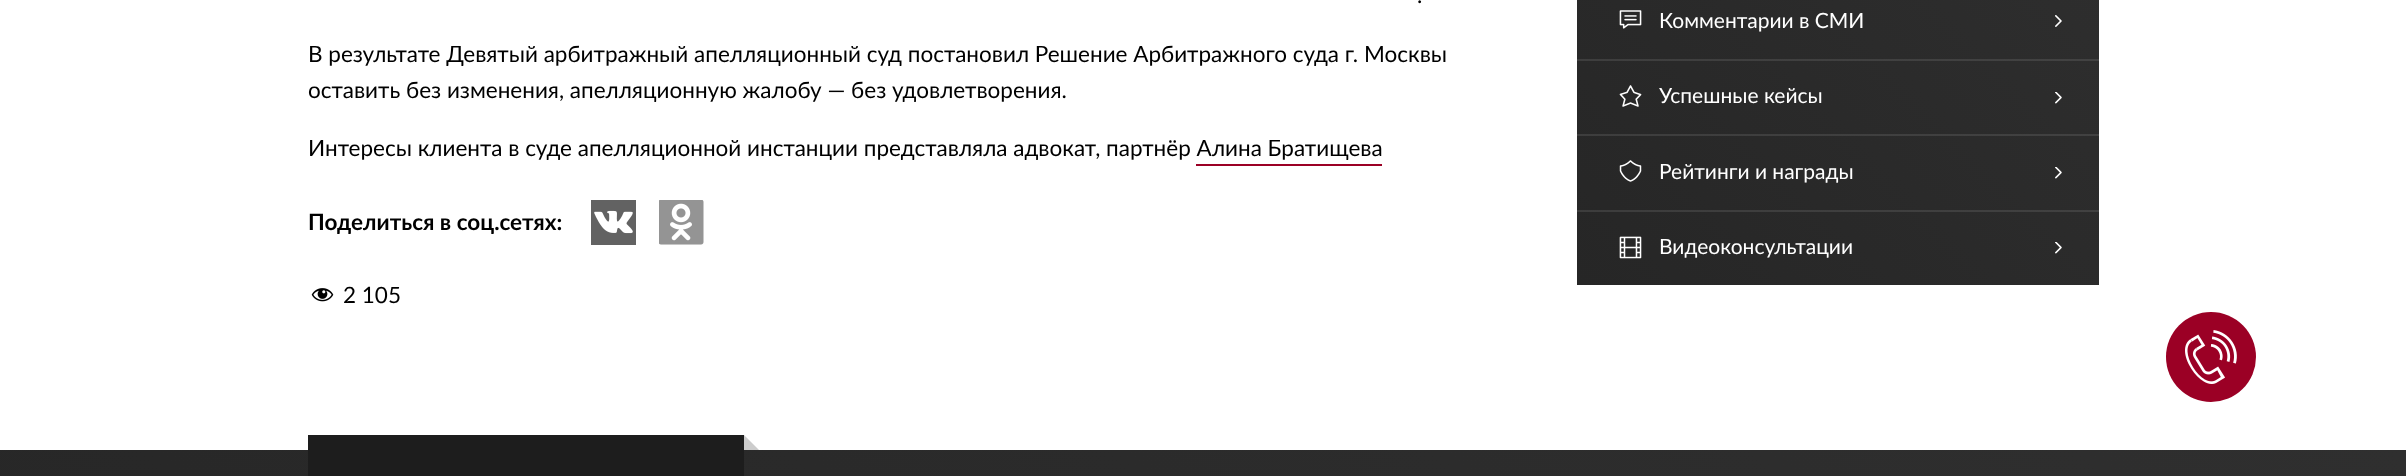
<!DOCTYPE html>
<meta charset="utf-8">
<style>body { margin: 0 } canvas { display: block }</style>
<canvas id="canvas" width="2406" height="476"></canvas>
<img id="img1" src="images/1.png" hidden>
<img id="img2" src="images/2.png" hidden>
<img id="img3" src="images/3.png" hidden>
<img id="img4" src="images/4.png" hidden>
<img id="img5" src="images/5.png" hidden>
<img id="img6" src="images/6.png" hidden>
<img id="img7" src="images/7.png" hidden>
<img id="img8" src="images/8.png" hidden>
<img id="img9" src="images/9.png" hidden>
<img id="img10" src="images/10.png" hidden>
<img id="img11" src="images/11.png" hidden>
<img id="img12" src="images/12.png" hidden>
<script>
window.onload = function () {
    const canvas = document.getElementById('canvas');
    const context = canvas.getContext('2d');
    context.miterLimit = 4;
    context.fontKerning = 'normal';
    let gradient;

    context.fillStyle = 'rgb(255, 255, 255)';
    context.fillRect(0, 0, 2406, 476);
    context.fillStyle = 'rgb(155, 0, 37)';
    context.fillRect(1196, 164, 186, 2);
    context.drawImage(document.getElementById('img1'), 591, 200, 45, 45);
    context.drawImage(document.getElementById('img2'), 659, 200, 45, 45);
    context.drawImage(document.getElementById('img3'), 311, 288, 23, 14);
    gradient = context.createLinearGradient(1594, 302, 2081, -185);
    gradient.addColorStop(0, 'rgb(38, 38, 38)');
    gradient.addColorStop(1, 'rgb(47, 47, 47)');
    context.fillStyle = gradient;
    context.fillRect(1577, 0, 522, 285);
    gradient = context.createLinearGradient(1594, 302, 2081, -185);
    gradient.addColorStop(0, 'rgb(60, 60, 60)');
    gradient.addColorStop(1, 'rgb(68, 68, 68)');
    context.fillStyle = gradient;
    context.fillRect(1577, 210, 522, 2);
    context.fillRect(1577, 134, 522, 2);
    context.fillRect(1577, 59, 522, 2);
    context.drawImage(document.getElementById('img4'), 2055, 15, 7, 12);
    context.drawImage(document.getElementById('img5'), 1619, 10, 23, 19);
    context.drawImage(document.getElementById('img6'), 2055, 92, 7, 12);
    context.drawImage(document.getElementById('img7'), 1619, 85, 23, 22);
    context.drawImage(document.getElementById('img8'), 2055, 167, 7, 12);
    context.drawImage(document.getElementById('img9'), 1619, 160, 23, 22);
    context.drawImage(document.getElementById('img10'), 2055, 242, 7, 12);
    context.drawImage(document.getElementById('img11'), 1619, 236, 23, 23);
    gradient = context.createLinearGradient(478, 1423, 1928, -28);
    gradient.addColorStop(0, 'rgb(38, 38, 38)');
    gradient.addColorStop(1, 'rgb(47, 47, 47)');
    context.fillStyle = gradient;
    context.fillRect(0, 450, 2406, 26);
    context.fillStyle = 'rgb(29, 29, 29)';
    context.fillRect(308, 435, 436, 41);
    context.fillStyle = 'rgb(204, 204, 204)';
    context.beginPath();
    context.moveTo(744, 450);
    context.lineTo(744, 435);
    context.lineTo(759, 450);
    context.closePath();
    context.fill();
    context.fillStyle = 'rgb(155, 0, 37)';
    context.beginPath();
    context.arc(2211, 357, 45, 0, 2 * Math.PI);
    context.fill();
    context.drawImage(document.getElementById('img12'), 2185, 330, 52, 54);
    context.font = '22.5px Lato';
    context.fillStyle = 'rgb(0, 0, 0)';
    context.fillText('.', 1417, 3);
    context.fillText('В результате Девятый арбитражный апелляционный суд постановил Решение Арбитражного суда г. Москвы', 308, 62);
    context.fillText('оставить без изменения, апелляционную жалобу — без удовлетворения.', 308, 98);
    context.fillText('Интересы клиента в суде апелляционной инстанции представляла адвокат, партнёр Алина Братищева', 308, 156);
    context.font = 'bold 22.5px Lato';
    context.fillText('Поделиться в соц.сетях:', 308, 230);
    context.font = '22.5px Lato';
    context.fillText('2 105', 343, 303);
    context.font = '21px Lato';
    context.fillStyle = 'rgb(255, 255, 255)';
    context.fillText('Комментарии в СМИ', 1659, 28);
    context.fillText('Успешные кейсы', 1659, 103);
    context.fillText('Рейтинги и награды', 1659, 179);
    context.fillText('Видеоконсультации', 1659, 254);
};
</script>
